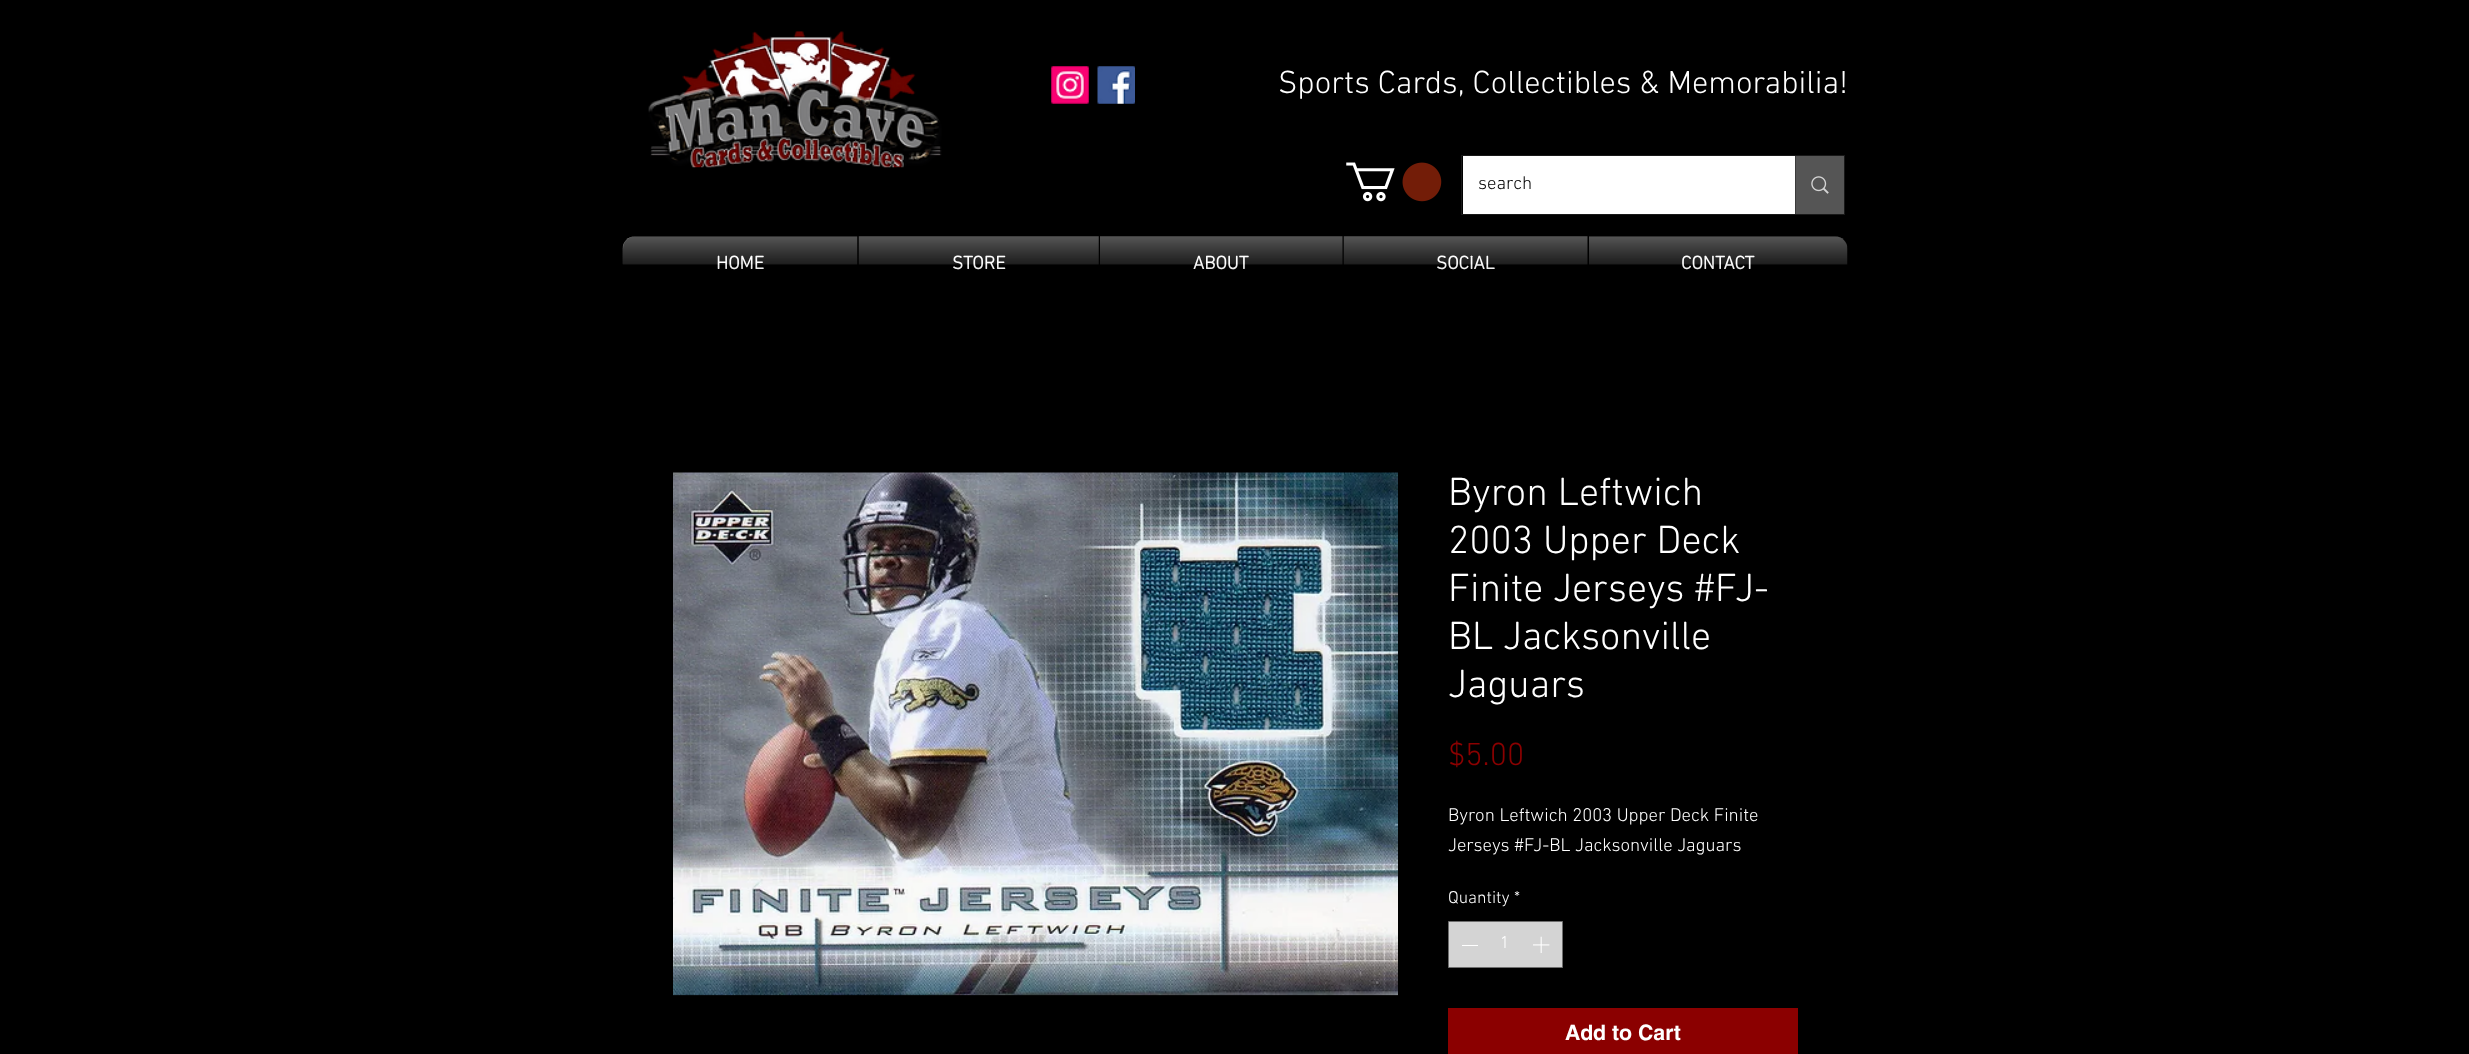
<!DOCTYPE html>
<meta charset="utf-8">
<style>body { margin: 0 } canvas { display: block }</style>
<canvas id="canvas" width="2469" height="1054"></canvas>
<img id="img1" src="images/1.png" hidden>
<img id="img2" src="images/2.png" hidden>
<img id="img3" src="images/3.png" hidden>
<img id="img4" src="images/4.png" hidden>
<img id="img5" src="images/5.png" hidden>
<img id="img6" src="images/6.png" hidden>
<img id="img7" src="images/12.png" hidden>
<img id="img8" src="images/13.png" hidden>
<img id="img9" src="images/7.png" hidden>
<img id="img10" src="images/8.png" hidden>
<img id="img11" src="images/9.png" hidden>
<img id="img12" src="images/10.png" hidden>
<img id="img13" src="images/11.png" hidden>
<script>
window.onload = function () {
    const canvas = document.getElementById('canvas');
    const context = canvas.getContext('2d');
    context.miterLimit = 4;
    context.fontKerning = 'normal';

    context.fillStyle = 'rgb(0, 0, 0)';
    context.fillRect(0, 0, 2469, 1054);
    context.drawImage(document.getElementById('img1'), 648, 31, 294, 137);
    context.drawImage(document.getElementById('img2'), 1051, 66, 38, 38);
    context.drawImage(document.getElementById('img3'), 1097, 66, 38, 38);
    context.drawImage(document.getElementById('img4'), 1346, 162, 96, 40);
    context.strokeStyle = 'rgb(25, 25, 25)';
    context.strokeRect(1461.5, 155.5, 383, 59);
    context.fillStyle = 'rgb(255, 255, 255)';
    context.fillRect(1463, 156, 332, 58);
    context.fillStyle = 'rgb(85, 85, 85)';
    context.fillRect(1796, 156, 48, 58);
    context.fillStyle = 'rgb(59, 59, 59)';
    context.fillRect(1795, 156, 1, 58);
    context.drawImage(document.getElementById('img5'), 1811, 176, 18, 18);
    context.drawImage(document.getElementById('img6'), 622, 236, 1226, 28);
    context.fillStyle = 'rgb(0, 0, 0)';
    context.beginPath();
    context.roundRect(623, 236, 235, 57, [13, 0, 0, 0]);
    context.fill();
    context.fillRect(858, 236, 730, 28);
    context.beginPath();
    context.roundRect(1588, 236, 260, 57, [0, 13, 0, 0]);
    context.fill();
    context.drawImage(document.getElementById('img7'), 673, 472, 725, 524);
    context.fillStyle = 'rgb(212, 212, 212)';
    context.beginPath();
    context.rect(1448.5, 921.5, 114, 46);
    context.fill();
    context.strokeStyle = 'rgb(110, 110, 110)';
    context.stroke();
    context.fillStyle = 'rgb(255, 255, 255)';
    context.fillRect(1462, 945, 16, 1);
    context.drawImage(document.getElementById('img8'), 1533, 936, 17, 17);
    context.fillStyle = 'rgb(139, 0, 0)';
    context.fillRect(1448, 1008, 350, 46);
    context.font = '300 32.5px "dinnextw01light"';
    context.fillStyle = 'rgb(255, 255, 255)';
    context.fillText('Sports Cards, Collectibles & Memorabilia!', 1278, 93);
    context.font = '300 18.75px "dinnextw01light"';
    context.fillStyle = 'rgb(0, 0, 0)';
    context.fillText('search', 1478, 189);
    context.font = 'bold 18.75px "dinnextw01light"';
    context.fillStyle = 'rgb(255, 255, 255)';
    context.fillText('HOME', 716, 269);
    context.drawImage(document.getElementById('img9'), 622, 236, 236, 33);
    context.fillText('STORE', 952, 269);
    context.drawImage(document.getElementById('img10'), 858, 236, 241, 33);
    context.fillText('ABOUT', 1193, 269);
    context.drawImage(document.getElementById('img11'), 1100, 236, 243, 33);
    context.fillText('SOCIAL', 1436, 269);
    context.drawImage(document.getElementById('img12'), 1343, 236, 245, 33);
    context.fillText('CONTACT', 1681, 269);
    context.drawImage(document.getElementById('img13'), 1589, 236, 259, 33);
    context.font = '300 40px "dinnextw01light"';
    context.fillText('Byron Leftwich', 1448, 505);
    context.fillText('2003 Upper Deck', 1448, 553);
    context.fillText('Finite Jerseys #FJ-', 1448, 601);
    context.fillText('BL Jacksonville', 1448, 649);
    context.fillText('Jaguars', 1448, 697);
    context.font = '300 32.5px "dinnextw01light"';
    context.fillStyle = 'rgb(139, 0, 0)';
    context.fillText('$5.00', 1448, 765);
    context.font = '300 18.75px "dinnextw01light"';
    context.fillStyle = 'rgb(255, 255, 255)';
    context.fillText('Byron Leftwich 2003 Upper Deck Finite', 1448, 821);
    context.fillText('Jerseys #FJ-BL Jacksonville Jaguars', 1448, 851);
    context.font = '300 17.5px "dinnextw01light"';
    context.fillText('Quantity', 1448, 903);
    context.fillText('*', 1514, 903);
    context.fillText('1', 1500, 948);
    context.font = 'bold 21.25px helvetica';
    context.fillText('Add to Cart', 1565, 1040);
};
</script>
